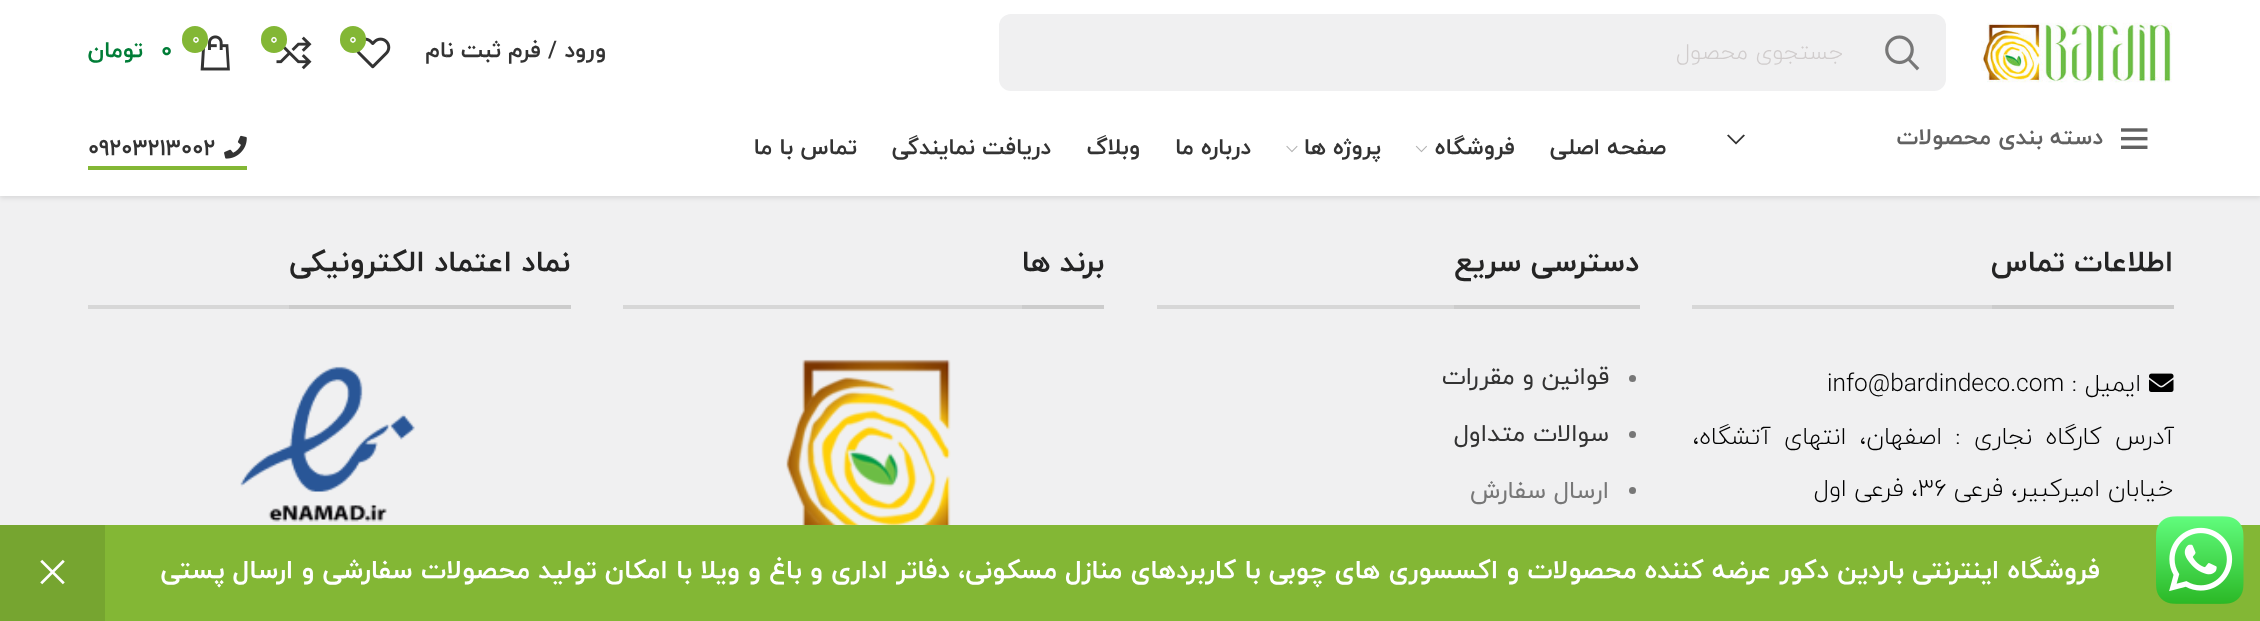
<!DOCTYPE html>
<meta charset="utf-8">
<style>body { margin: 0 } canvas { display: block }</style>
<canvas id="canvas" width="2260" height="621"></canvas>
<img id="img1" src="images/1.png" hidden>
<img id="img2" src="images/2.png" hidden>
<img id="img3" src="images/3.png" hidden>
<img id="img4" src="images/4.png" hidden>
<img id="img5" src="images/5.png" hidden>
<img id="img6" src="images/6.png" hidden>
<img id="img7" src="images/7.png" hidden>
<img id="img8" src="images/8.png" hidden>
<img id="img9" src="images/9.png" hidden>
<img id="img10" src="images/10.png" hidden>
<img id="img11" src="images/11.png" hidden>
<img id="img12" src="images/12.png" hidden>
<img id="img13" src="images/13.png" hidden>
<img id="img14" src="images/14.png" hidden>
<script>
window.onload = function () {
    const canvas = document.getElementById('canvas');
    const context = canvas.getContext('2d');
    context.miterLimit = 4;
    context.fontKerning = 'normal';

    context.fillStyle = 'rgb(240, 240, 241)';
    context.fillRect(0, 0, 2260, 621);
    context.fillStyle = 'rgba(0, 0, 0, 0.1)';
    context.filter = 'blur(2.5px)';
    context.beginPath();
    context.rect(0, 2, 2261, 196);
    context.fill();
    context.filter = 'none';
    context.fillStyle = 'rgb(255, 255, 255)';
    context.fillRect(0, 0, 2260, 196);
    context.drawImage(document.getElementById('img1'), 1981, 22, 191, 61);
    context.fillStyle = 'rgb(240, 240, 241)';
    context.beginPath();
    context.roundRect(999, 14, 947, 77, 12);
    context.fill();
    context.drawImage(document.getElementById('img2'), 1885, 35, 35, 36);
    context.drawImage(document.getElementById('img3'), 356, 37, 35, 32);
    context.fillStyle = 'rgb(131, 183, 53)';
    context.beginPath();
    context.roundRect(340, 26, 26, 27, 13);
    context.fill();
    context.drawImage(document.getElementById('img4'), 276, 36, 36, 34);
    context.beginPath();
    context.roundRect(261, 26, 26, 27, 13);
    context.fill();
    context.drawImage(document.getElementById('img5'), 200, 35, 30, 36);
    context.beginPath();
    context.roundRect(182, 26, 26, 27, 13);
    context.fill();
    context.drawImage(document.getElementById('img6'), 2121, 128, 27, 21);
    context.fillStyle = 'rgb(51, 51, 51)';
    context.beginPath();
    context.moveTo(1743.5, 134.5);
    context.lineTo(1745, 135.5);
    context.lineTo(1736, 144.5);
    context.lineTo(1727, 135.5);
    context.lineTo(1728.5, 134.5);
    context.lineTo(1736, 142);
    context.closePath();
    context.fill();
    context.drawImage(document.getElementById('img7'), 1415, 145, 12, 8);
    context.drawImage(document.getElementById('img8'), 1286, 145, 12, 8);
    context.fillStyle = 'rgb(131, 183, 53)';
    context.fillRect(88, 166, 159, 4);
    context.drawImage(document.getElementById('img9'), 224, 135, 23, 24);
    context.fillStyle = 'rgb(215, 215, 215)';
    context.fillRect(1692, 305, 300, 4);
    context.fillStyle = 'rgb(204, 204, 204)';
    context.fillRect(1992, 305, 182, 4);
    context.drawImage(document.getElementById('img10'), 2149, 373, 25, 19);
    context.fillStyle = 'rgb(215, 215, 215)';
    context.fillRect(1157, 305, 297, 4);
    context.fillStyle = 'rgb(204, 204, 204)';
    context.fillRect(1454, 305, 186, 4);
    context.fillStyle = 'rgb(119, 119, 119)';
    context.beginPath();
    context.arc(1632.5, 378.5, 3.5, 0, 2 * Math.PI);
    context.fill();
    context.beginPath();
    context.arc(1632.5, 434.5, 3.5, 0, 2 * Math.PI);
    context.fill();
    context.beginPath();
    context.arc(1632.5, 490.5, 3.5, 0, 2 * Math.PI);
    context.fill();
    context.fillStyle = 'rgb(215, 215, 215)';
    context.fillRect(623, 305, 399, 4);
    context.fillStyle = 'rgb(204, 204, 204)';
    context.fillRect(1022, 305, 82, 4);
    context.drawImage(document.getElementById('img11'), 786, 359, 165, 166);
    context.fillStyle = 'rgb(215, 215, 215)';
    context.fillRect(88, 305, 201, 4);
    context.fillStyle = 'rgb(204, 204, 204)';
    context.fillRect(289, 305, 282, 4);
    context.drawImage(document.getElementById('img12'), 240, 366, 175, 156);
    context.fillStyle = 'rgb(131, 183, 53)';
    context.fillRect(105, 525, 2155, 96);
    context.drawImage(document.getElementById('img13'), 2156, 516, 88, 88);
    context.fillStyle = 'rgb(118, 165, 48)';
    context.fillRect(0, 525, 105, 96);
    context.drawImage(document.getElementById('img14'), 40, 559, 25, 26);
    context.direction = 'rtl';
    context.font = '300 22.75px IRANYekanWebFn';
    context.fillStyle = 'rgb(208, 204, 204)';
    context.fillText('جستجوی محصول', 1843, 59);
    context.font = 'bold 22.75px IRANYekanWebFn';
    context.fillStyle = 'rgb(51, 51, 51)';
    context.fillText('ورود / فرم ثبت نام', 606, 57);
    context.direction = 'ltr';
    context.font = '16px IRANYekanWebFn';
    context.fillStyle = 'rgb(255, 255, 255)';
    context.fillText('0', 349, 44);
    context.fillText('0', 270, 44);
    context.fillText('0', 192, 44);
    context.font = 'bold 22.75px IRANYekanWebFn';
    context.fillStyle = 'rgb(0, 125, 55)';
    context.fillText('0', 161, 57);
    context.direction = 'rtl';
    context.fillText('تومان', 143, 57);
    context.fillStyle = 'rgb(97, 97, 97)';
    context.fillText('دسته بندی محصولات', 2103, 144);
    context.fillStyle = 'rgb(51, 51, 51)';
    context.fillText('صفحه اصلی', 1666, 154);
    context.fillText('فروشگاه', 1515, 154);
    context.fillText('پروژه ها', 1381, 154);
    context.fillText('درباره ما', 1251, 154);
    context.fillText('وبلاگ', 1140, 154);
    context.fillText('دریافت نمایندگی', 1051, 154);
    context.fillText('تماس با ما', 857, 154);
    context.direction = 'ltr';
    context.fillText('09203213002', 88, 155);
    context.direction = 'rtl';
    context.font = 'bold 29.75px IRANYekanWebFn';
    context.fillStyle = 'rgb(36, 36, 36)';
    context.fillText('اطلاعات تماس', 2173, 271);
    context.font = '300 24.5px IRANYekanWebFn';
    context.fillStyle = 'rgb(0, 0, 0)';
    context.fillText('ایمیل :', 2141, 391);
    context.direction = 'ltr';
    context.fillText('info@bardindeco.com', 1827, 391);
    context.wordSpacing = '5.5px';
    context.direction = 'rtl';
    context.fillText('آدرس کارگاه نجاری : اصفهان، انتهای آتشگاه،', 2174, 444);
    context.wordSpacing = '0px';
    context.fillText('خیابان امیرکبیر، فرعی', 2173, 496);
    context.direction = 'ltr';
    context.fillText('۳۶', 1918, 496);
    context.direction = 'rtl';
    context.fillText('، فرعی اول', 1918, 496);
    context.font = 'bold 29.75px IRANYekanWebFn';
    context.fillStyle = 'rgb(36, 36, 36)';
    context.fillText('دسترسی سریع', 1639, 271);
    context.font = '24.5px IRANYekanWebFn';
    context.fillStyle = 'rgb(51, 51, 51)';
    context.fillText('قوانین و مقررات', 1609, 384);
    context.fillText('سوالات متداول', 1609, 441);
    context.fillStyle = 'rgb(119, 119, 119)';
    context.fillText('ارسال سفارش', 1609, 498);
    context.font = 'bold 29.75px IRANYekanWebFn';
    context.fillStyle = 'rgb(36, 36, 36)';
    context.fillText('برند ها', 1104, 271);
    context.fillText('نماد اعتماد الکترونیکی', 570, 271);
    context.font = 'bold 26.25px IRANYekanWebFn';
    context.fillStyle = 'rgb(255, 255, 255)';
    context.fillText('فروشگاه اینترنتی باردین دکور عرضه کننده محصولات و اکسسوری های چوبی با کاربردهای منازل مسکونی، دفاتر اداری و باغ و ویلا با امکان تولید محصولات سفارشی و ارسال پستی', 2100, 578);
};
</script>
